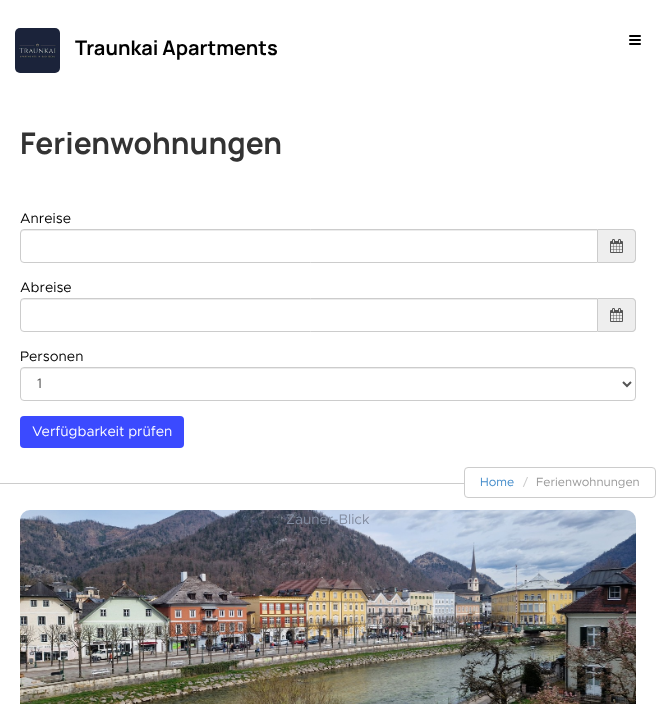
<!DOCTYPE html>
<meta charset="utf-8">
<style>body { margin: 0 } canvas { display: block }</style>
<canvas id="canvas" width="656" height="704"></canvas>
<img id="img1" src="images/1.png" hidden>
<img id="img2" src="images/2.png" hidden>
<img id="img3" src="images/3.png" hidden>
<script>
window.onload = function () {
    const canvas = document.getElementById('canvas');
    const context = canvas.getContext('2d');
    context.miterLimit = 4;
    context.fontKerning = 'normal';

    context.fillStyle = 'rgb(255, 255, 255)';
    context.fillRect(0, 0, 656, 704);
    context.drawImage(document.getElementById('img1'), 15, 28, 45, 45);
    context.fillStyle = 'rgb(0, 0, 0)';
    context.beginPath();
    context.roundRect(629, 35, 12, 2, 1);
    context.fill();
    context.beginPath();
    context.roundRect(629, 39, 12, 2, 1);
    context.fill();
    context.beginPath();
    context.roundRect(629, 43, 12, 2, 1);
    context.fill();
    context.fillStyle = 'rgb(236, 236, 236)';
    context.beginPath();
    context.moveTo(24, 231);
    context.lineTo(597, 231);
    context.lineTo(597, 230);
    context.lineTo(24, 230);
    context.bezierCurveTo(22, 230, 21, 231, 21, 233);
    context.lineTo(21, 234);
    context.bezierCurveTo(21, 232, 22, 231, 24, 231);
    context.closePath();
    context.fill();
    context.beginPath();
    context.roundRect(20.5, 229.5, 577, 33, [3.5, 0, 0, 3.5]);
    context.strokeStyle = 'rgb(204, 204, 204)';
    context.stroke();
    context.fillStyle = 'rgb(238, 238, 238)';
    context.beginPath();
    context.roundRect(598, 229, 38, 34, [0, 4, 4, 0]);
    context.fill();
    context.fillStyle = 'rgb(204, 204, 204)';
    context.beginPath();
    context.moveTo(598, 229);
    context.lineTo(632, 229);
    context.bezierCurveTo(634, 229, 636, 231, 636, 233);
    context.lineTo(636, 259);
    context.bezierCurveTo(636, 261, 634, 263, 632, 263);
    context.lineTo(598, 263);
    context.closePath();
    context.moveTo(598, 230);
    context.lineTo(632, 230);
    context.bezierCurveTo(633.5, 230, 635, 231.5, 635, 233);
    context.lineTo(635, 259);
    context.bezierCurveTo(635, 260.5, 633.5, 262, 632, 262);
    context.lineTo(598, 262);
    context.closePath();
    context.fill('evenodd');
    context.drawImage(document.getElementById('img2'), 610, 239, 13, 14);
    context.fillStyle = 'rgb(236, 236, 236)';
    context.beginPath();
    context.moveTo(24, 300);
    context.lineTo(597, 300);
    context.lineTo(597, 299);
    context.lineTo(24, 299);
    context.bezierCurveTo(22, 299, 21, 300, 21, 302);
    context.lineTo(21, 303);
    context.bezierCurveTo(21, 301, 22, 300, 24, 300);
    context.closePath();
    context.fill();
    context.beginPath();
    context.roundRect(20.5, 298.5, 577, 33, [3.5, 0, 0, 3.5]);
    context.stroke();
    context.fillStyle = 'rgb(238, 238, 238)';
    context.beginPath();
    context.roundRect(598, 298, 38, 34, [0, 4, 4, 0]);
    context.fill();
    context.fillStyle = 'rgb(204, 204, 204)';
    context.beginPath();
    context.moveTo(598, 298);
    context.lineTo(632, 298);
    context.bezierCurveTo(634, 298, 636, 300, 636, 302);
    context.lineTo(636, 328);
    context.bezierCurveTo(636, 330, 634, 332, 632, 332);
    context.lineTo(598, 332);
    context.closePath();
    context.moveTo(598, 299);
    context.lineTo(632, 299);
    context.bezierCurveTo(633.5, 299, 635, 300.5, 635, 302);
    context.lineTo(635, 328);
    context.bezierCurveTo(635, 329.5, 633.5, 331, 632, 331);
    context.lineTo(598, 331);
    context.closePath();
    context.fill('evenodd');
    context.drawImage(document.getElementById('img2'), 610, 308, 13, 14);
    context.fillStyle = 'rgb(236, 236, 236)';
    context.beginPath();
    context.moveTo(24, 369);
    context.lineTo(632, 369);
    context.bezierCurveTo(634, 369, 635, 370, 635, 372);
    context.lineTo(635, 371);
    context.bezierCurveTo(635, 369, 634, 368, 632, 368);
    context.lineTo(24, 368);
    context.bezierCurveTo(22, 368, 21, 369, 21, 371);
    context.lineTo(21, 372);
    context.bezierCurveTo(21, 370, 22, 369, 24, 369);
    context.closePath();
    context.fill();
    context.beginPath();
    context.roundRect(20.5, 367.5, 615, 33, 3.5);
    context.stroke();
    context.beginPath();
    context.moveTo(623, 382);
    context.lineTo(627, 386);
    context.lineTo(631, 382);
    context.strokeStyle = 'rgb(85, 85, 85)';
    context.lineWidth = 2;
    context.stroke();
    context.fillStyle = 'rgb(59, 74, 255)';
    context.beginPath();
    context.roundRect(20, 416, 164, 32, 4);
    context.fill();
    context.fillStyle = 'rgb(204, 204, 204)';
    context.fillRect(0, 483, 464, 1);
    context.beginPath();
    context.roundRect(464.5, 467.5, 191, 30, 3.5);
    context.strokeStyle = 'rgb(204, 204, 204)';
    context.lineWidth = 1;
    context.stroke();
    context.drawImage(document.getElementById('img3'), 20, 510, 616, 194);
    context.font = 'bold 20px Manrope';
    context.fillStyle = 'rgb(0, 0, 0)';
    context.fillText('Traunkai Apartments', 75, 55);
    context.font = 'bold 30px Manrope';
    context.fillStyle = 'rgb(51, 51, 51)';
    context.fillText('Ferienwohnungen', 20, 154);
    context.font = '14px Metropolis';
    context.fillStyle = 'rgb(0, 0, 0)';
    context.fillText('Anreise', 20, 223);
    context.fillText('Abreise', 20, 292);
    context.fillText('Personen', 20, 361);
    context.fillStyle = 'rgb(85, 85, 85)';
    context.fillText('1', 37, 388);
    context.fillStyle = 'rgb(255, 255, 255)';
    context.fillText('Verfügbarkeit prüfen', 32, 436);
    context.font = '12px Metropolis';
    context.fillStyle = 'rgb(66, 139, 202)';
    context.fillText('Home', 480, 486);
    context.fillStyle = 'rgb(204, 204, 204)';
    context.fillText('/', 523, 486);
    context.fillStyle = 'rgb(153, 153, 153)';
    context.fillText('Ferienwohnungen', 536, 486);
    context.font = '14px Metropolis';
    context.fillStyle = 'rgb(131, 141, 161)';
    context.fillText('Zauner-Blick', 286, 524);
};
</script>
